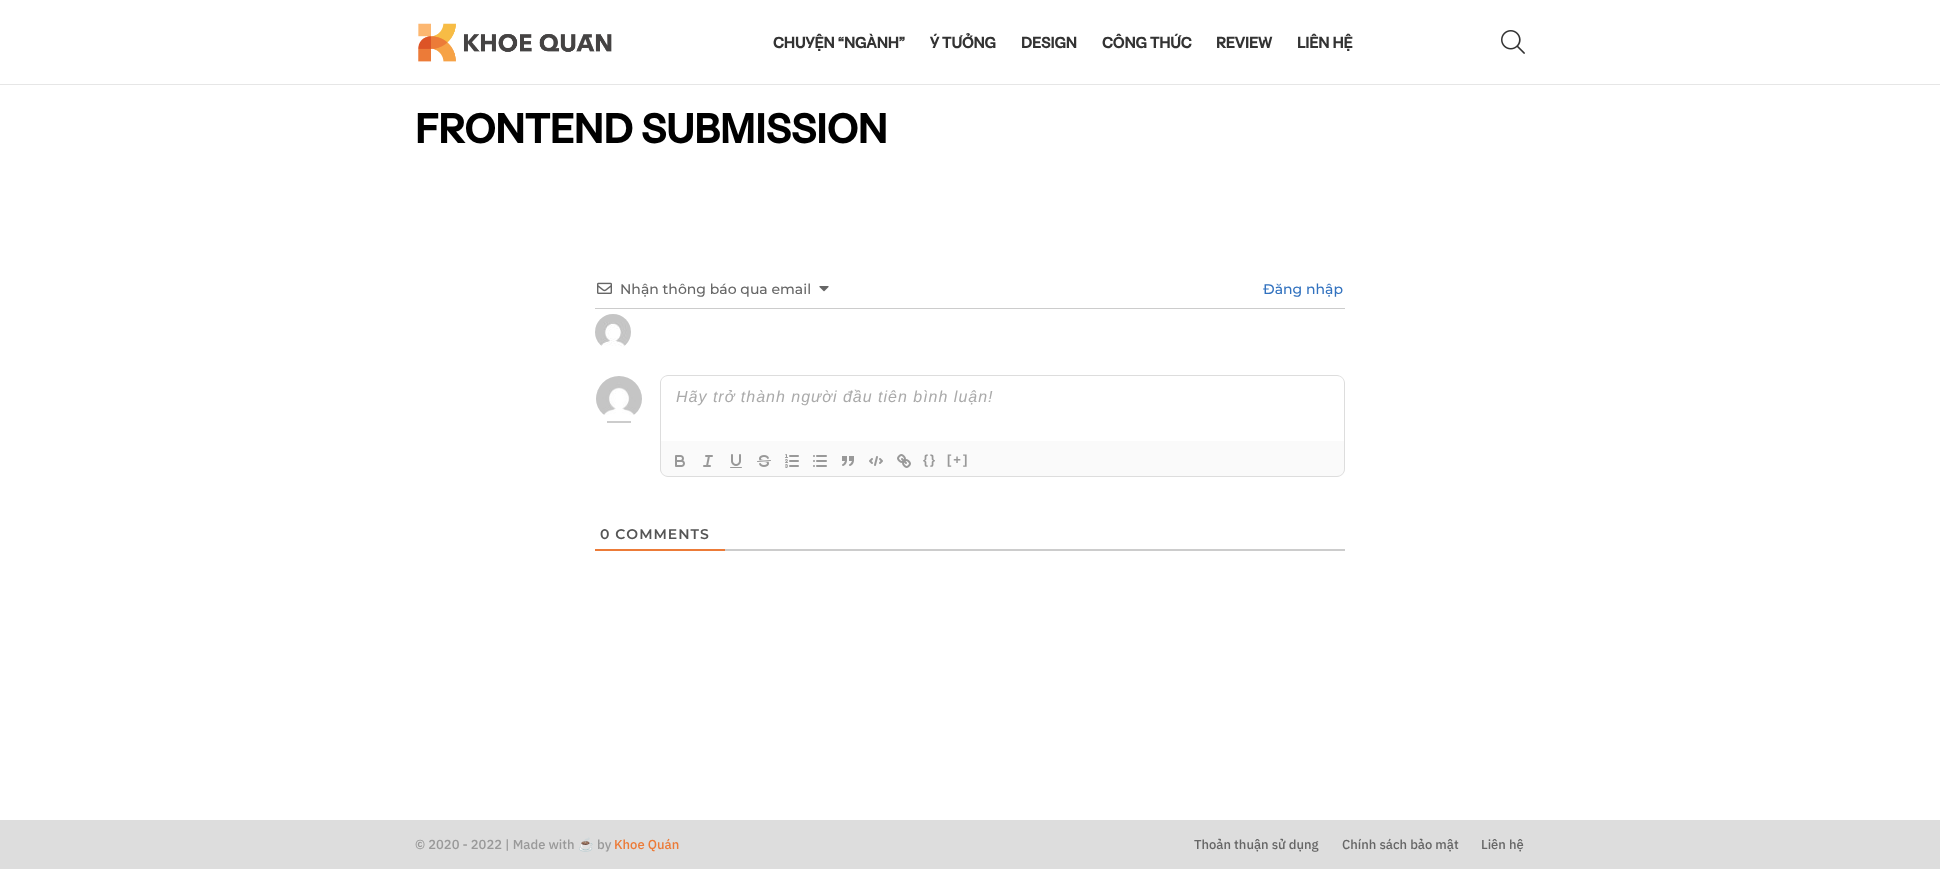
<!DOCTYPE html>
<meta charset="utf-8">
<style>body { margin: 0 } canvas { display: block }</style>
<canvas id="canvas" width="1940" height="869"></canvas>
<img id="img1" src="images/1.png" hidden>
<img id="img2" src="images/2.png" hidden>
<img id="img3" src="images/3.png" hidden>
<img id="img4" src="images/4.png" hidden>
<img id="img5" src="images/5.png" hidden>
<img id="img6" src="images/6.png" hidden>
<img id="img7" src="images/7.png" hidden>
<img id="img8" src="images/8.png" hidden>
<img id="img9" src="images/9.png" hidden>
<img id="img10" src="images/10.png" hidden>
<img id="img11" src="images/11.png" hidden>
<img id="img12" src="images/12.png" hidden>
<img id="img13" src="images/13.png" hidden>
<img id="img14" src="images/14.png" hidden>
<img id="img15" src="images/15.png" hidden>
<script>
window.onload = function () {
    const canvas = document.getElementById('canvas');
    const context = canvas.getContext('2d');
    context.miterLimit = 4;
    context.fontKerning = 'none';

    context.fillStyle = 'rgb(255, 255, 255)';
    context.fillRect(0, 0, 1940, 869);
    context.drawImage(document.getElementById('img1'), 418, 23, 194, 39);
    context.drawImage(document.getElementById('img2'), 1501, 30, 24, 24);
    context.fillStyle = 'rgb(230, 230, 230)';
    context.fillRect(0, 84, 1940, 1);
    context.fillStyle = 'rgb(204, 204, 204)';
    context.fillRect(595, 308, 750, 1);
    context.drawImage(document.getElementById('img3'), 597, 282, 15, 12);
    context.drawImage(document.getElementById('img4'), 819, 286, 10, 6);
    context.drawImage(document.getElementById('img5'), 595, 314, 36, 33);
    context.drawImage(document.getElementById('img6'), 596, 376, 46, 39);
    context.fillRect(607, 421, 24, 2);
    context.fillStyle = 'rgb(221, 221, 221)';
    context.beginPath();
    context.moveTo(668, 375);
    context.lineTo(1337, 375);
    context.bezierCurveTo(1341, 375, 1345, 379, 1345, 383);
    context.lineTo(1345, 441);
    context.lineTo(660, 441);
    context.lineTo(660, 383);
    context.bezierCurveTo(660, 379, 664, 375, 668, 375);
    context.closePath();
    context.moveTo(668, 376);
    context.lineTo(1337, 376);
    context.bezierCurveTo(1341, 376, 1344, 379, 1344, 383);
    context.lineTo(1344, 441);
    context.lineTo(661, 441);
    context.lineTo(661, 383);
    context.bezierCurveTo(661, 379, 664, 376, 668, 376);
    context.closePath();
    context.fill('evenodd');
    context.fillStyle = 'rgb(250, 250, 250)';
    context.beginPath();
    context.roundRect(660, 441, 685, 36, [0, 0, 8, 8]);
    context.fill();
    context.fillStyle = 'rgb(221, 221, 221)';
    context.beginPath();
    context.moveTo(660, 441);
    context.lineTo(1345, 441);
    context.lineTo(1345, 469);
    context.bezierCurveTo(1345, 473, 1341, 477, 1337, 477);
    context.lineTo(668, 477);
    context.bezierCurveTo(664, 477, 660, 473, 660, 469);
    context.closePath();
    context.moveTo(661, 441);
    context.lineTo(1344, 441);
    context.lineTo(1344, 469);
    context.bezierCurveTo(1344, 473, 1341, 476, 1337, 476);
    context.lineTo(668, 476);
    context.bezierCurveTo(664, 476, 661, 473, 661, 469);
    context.closePath();
    context.fill('evenodd');
    context.drawImage(document.getElementById('img7'), 675, 455, 10, 12);
    context.drawImage(document.getElementById('img8'), 703, 455, 10, 12);
    context.drawImage(document.getElementById('img9'), 730, 454, 12, 14);
    context.drawImage(document.getElementById('img10'), 757, 455, 14, 12);
    context.drawImage(document.getElementById('img11'), 785, 454, 14, 14);
    context.drawImage(document.getElementById('img12'), 813, 455, 14, 12);
    context.drawImage(document.getElementById('img13'), 842, 456, 12, 10);
    context.drawImage(document.getElementById('img14'), 869, 456, 14, 10);
    context.drawImage(document.getElementById('img15'), 897, 454, 14, 14);
    context.fillStyle = 'rgb(204, 204, 204)';
    context.fillRect(725, 549, 620, 2);
    context.fillStyle = 'rgb(236, 123, 56)';
    context.fillRect(595, 549, 130, 2);
    context.fillStyle = 'rgb(221, 221, 221)';
    context.fillRect(0, 820, 1940, 49);
    context.font = 'bold 15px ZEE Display';
    context.fillStyle = 'rgb(51, 51, 51)';
    context.fillText('CHUYỆN “NGÀNH”', 773, 48);
    context.fillText('Ý TƯỞNG', 930, 48);
    context.fillText('DESIGN', 1021, 48);
    context.fillText('CÔNG THỨC', 1102, 48);
    context.fillText('REVIEW', 1216, 48);
    context.fillText('LIÊN HỆ', 1297, 48);
    context.font = 'bold 40px ZEE Display';
    context.fillStyle = 'rgb(0, 0, 0)';
    context.fillText('FRONTEND SUBMISSION', 415, 143);
    context.font = '500 14px Montserrat';
    context.fillStyle = 'rgb(102, 102, 102)';
    context.fillText('Nhận thông báo qua email', 620, 294);
    context.fillStyle = 'rgb(50, 114, 191)';
    context.fillText('Đăng nhập', 1263, 294);
    context.letterSpacing = '1px';
    context.font = 'italic 16px Liberation Sans';
    context.fillStyle = 'rgb(170, 170, 170)';
    context.fillText('Hãy trở thành người đầu tiên bình luận!', 676, 402);
    context.letterSpacing = '2px';
    context.font = 'bold 13px Liberation Sans';
    context.fillStyle = 'rgb(153, 153, 153)';
    context.fillText('{}', 923, 464);
    context.fillText('[+]', 947, 464);
    context.letterSpacing = '1px';
    context.font = '600 14px Montserrat';
    context.fillStyle = 'rgb(85, 85, 85)';
    context.fillText('0 COMMENTS', 600, 539);
    context.letterSpacing = '0px';
    context.font = '500 13px IBM Plex Sans';
    context.fillStyle = 'rgb(153, 153, 153)';
    context.fillText('© 2020 - 2022 | Made with', 415, 849);
    context.font = '13px Noto Color Emoji';
    context.fillText('☕', 578, 849);
    context.font = '500 13px IBM Plex Sans';
    context.fillText('by', 597, 849);
    context.fillStyle = 'rgb(236, 123, 56)';
    context.fillText('Khoe Quán', 614, 849);
    context.fillStyle = 'rgb(102, 102, 102)';
    context.fillText('Thoản thuận sử dụng', 1194, 849);
    context.fillText('Chính sách bảo mật', 1342, 849);
    context.fillText('Liên hệ', 1481, 849);
};
</script>
